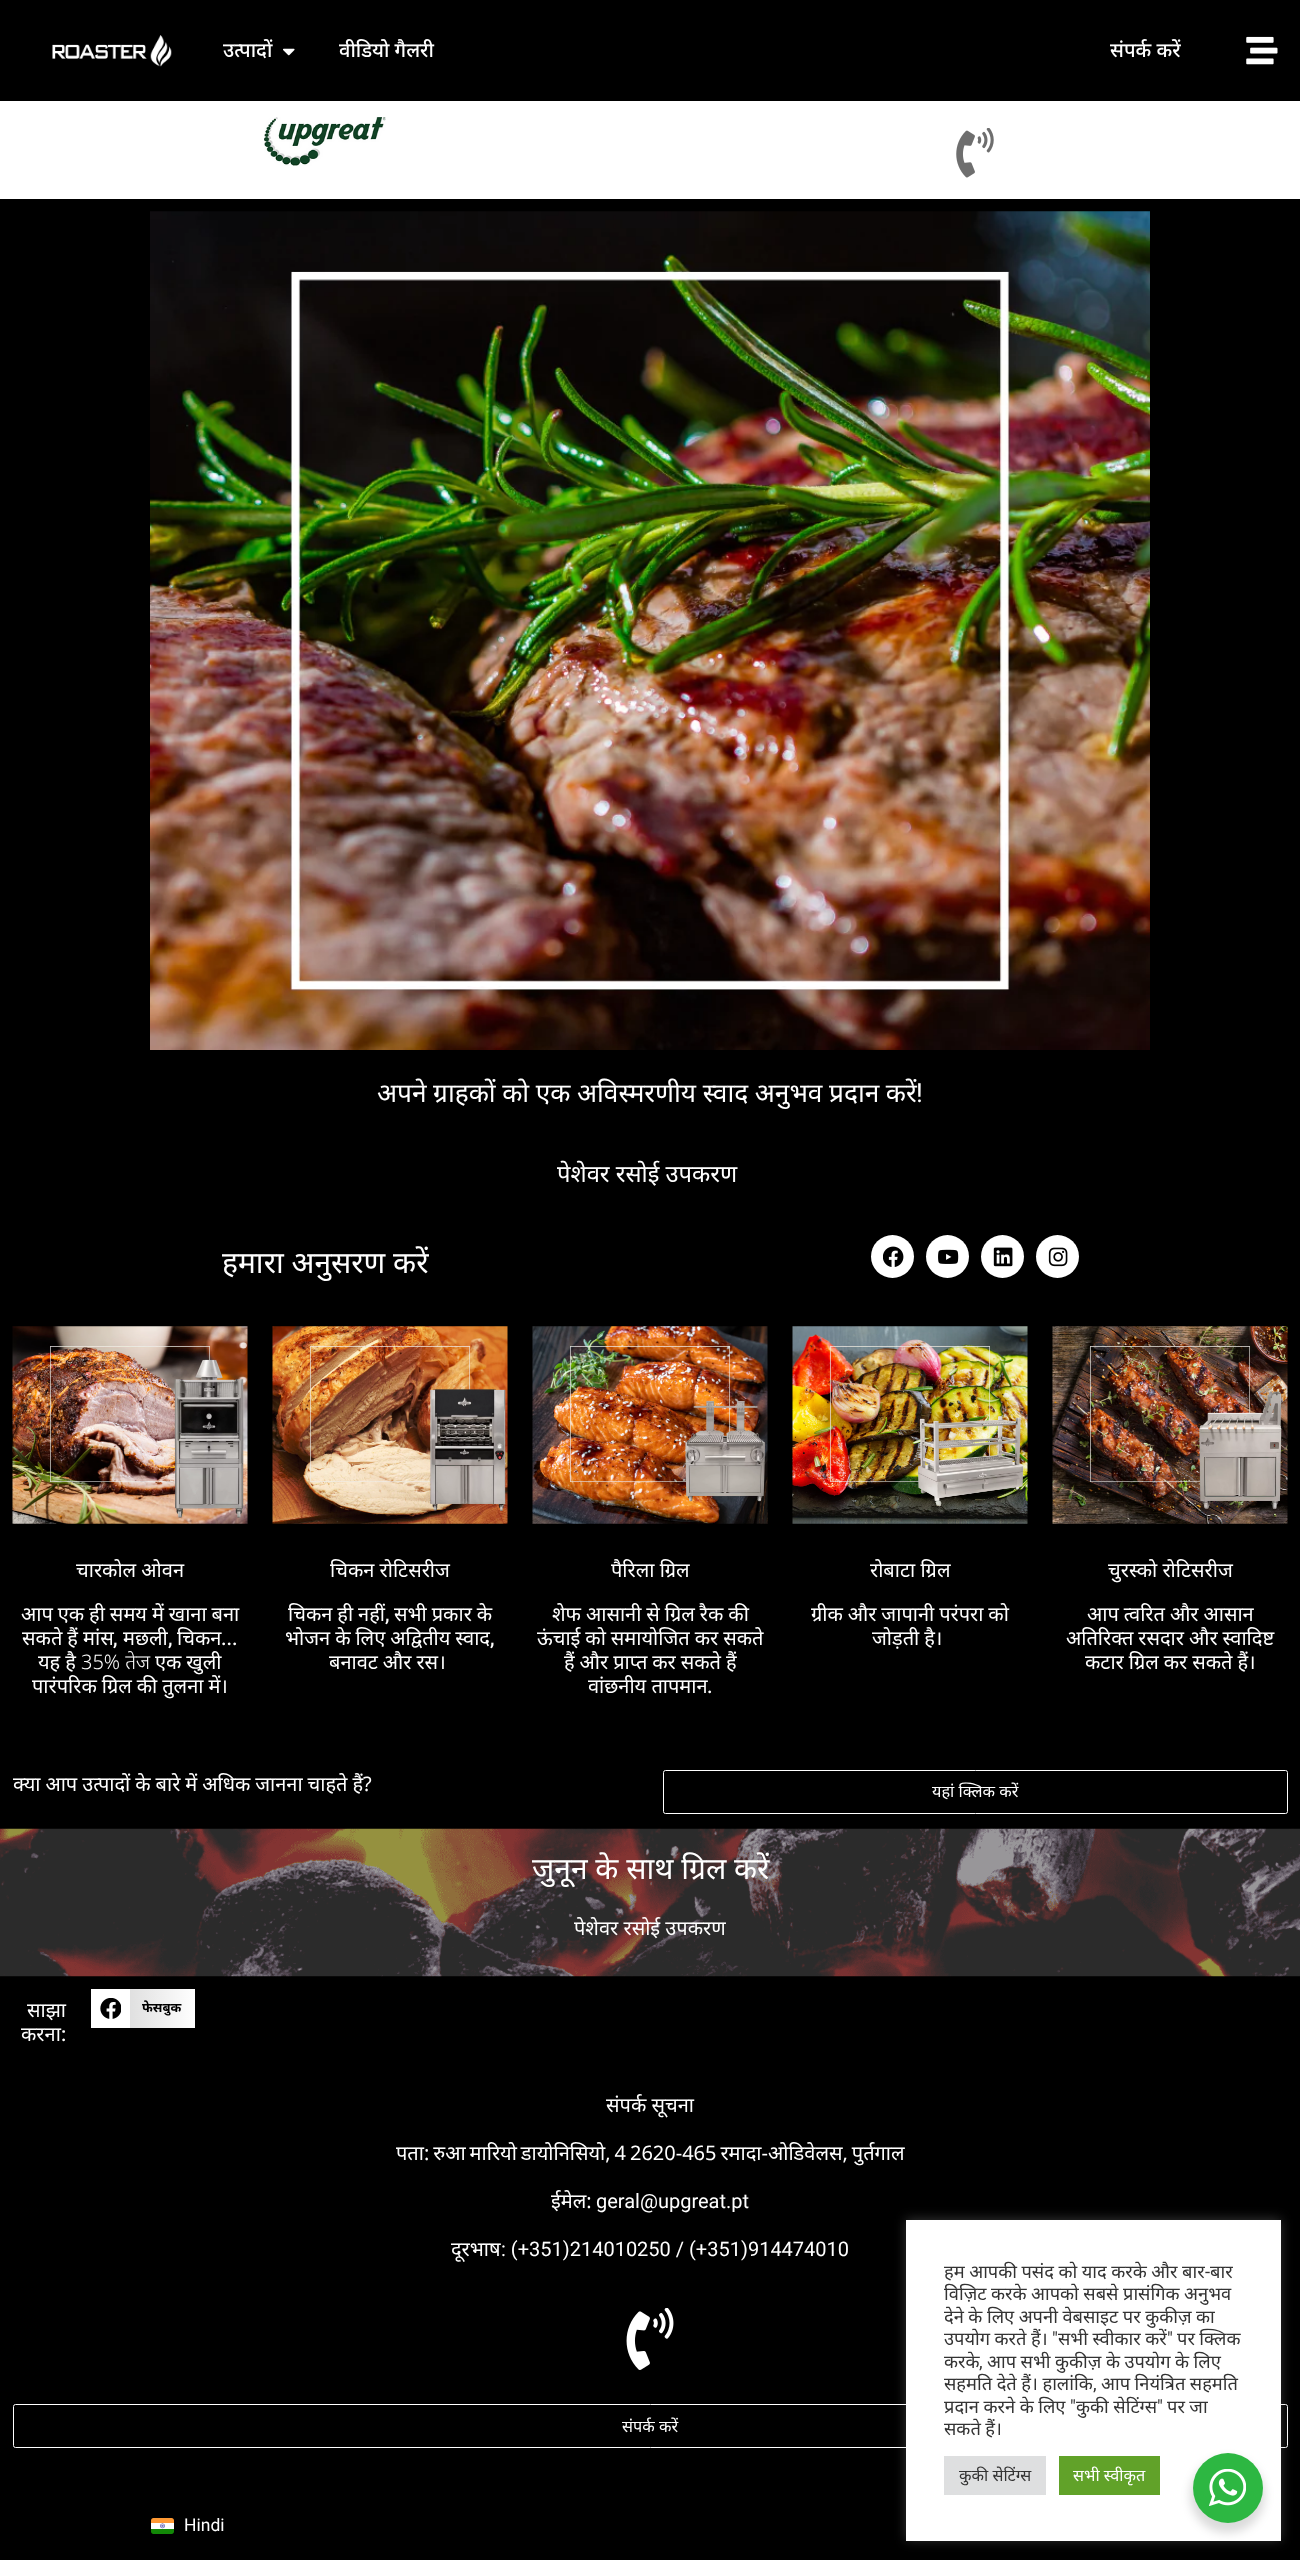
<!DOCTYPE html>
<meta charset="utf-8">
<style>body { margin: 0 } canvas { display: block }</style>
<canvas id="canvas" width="1300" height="2560"></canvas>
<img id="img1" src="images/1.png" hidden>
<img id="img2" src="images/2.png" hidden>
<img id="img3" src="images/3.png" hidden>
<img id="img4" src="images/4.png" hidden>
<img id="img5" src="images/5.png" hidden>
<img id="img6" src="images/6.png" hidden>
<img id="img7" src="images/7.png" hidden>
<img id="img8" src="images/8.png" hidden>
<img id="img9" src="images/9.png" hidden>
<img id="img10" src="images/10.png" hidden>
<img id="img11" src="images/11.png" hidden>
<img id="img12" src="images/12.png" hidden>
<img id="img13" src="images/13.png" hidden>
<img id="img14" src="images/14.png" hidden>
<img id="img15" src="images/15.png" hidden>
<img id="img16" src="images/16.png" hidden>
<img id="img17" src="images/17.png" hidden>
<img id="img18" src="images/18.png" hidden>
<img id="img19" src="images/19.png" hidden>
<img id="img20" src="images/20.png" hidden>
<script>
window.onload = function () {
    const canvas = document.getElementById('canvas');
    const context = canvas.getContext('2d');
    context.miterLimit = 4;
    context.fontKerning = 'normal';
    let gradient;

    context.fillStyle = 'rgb(0, 0, 0)';
    context.fillRect(0, 0, 1300, 2560);
    context.drawImage(document.getElementById('img1'), 52, 35, 120, 32);
    context.drawImage(document.getElementById('img2'), 283, 48, 12, 8);
    context.drawImage(document.getElementById('img3'), 1246, 36, 32, 29);
    context.fillStyle = 'rgb(255, 255, 255)';
    context.fillRect(0, 101, 1300, 98);
    context.drawImage(document.getElementById('img4'), 264, 117, 122, 49);
    context.drawImage(document.getElementById('img5'), 956, 128, 38, 50);
    context.drawImage(document.getElementById('img6'), 150, 211, 1000, 839);
    context.beginPath();
    context.arc(892.5, 1256.5, 21.5, 0, 2 * Math.PI);
    context.fill();
    context.drawImage(document.getElementById('img7'), 883, 1246, 21, 21);
    context.beginPath();
    context.arc(947.5, 1256.5, 21.5, 0, 2 * Math.PI);
    context.fill();
    context.drawImage(document.getElementById('img8'), 938, 1249, 21, 15);
    context.beginPath();
    context.arc(1002.5, 1256.5, 21.5, 0, 2 * Math.PI);
    context.fill();
    context.drawImage(document.getElementById('img9'), 993, 1247, 20, 20);
    context.beginPath();
    context.arc(1057.5, 1256.5, 21.5, 0, 2 * Math.PI);
    context.fill();
    context.drawImage(document.getElementById('img10'), 1048, 1247, 20, 20);
    context.drawImage(document.getElementById('img11'), 12, 1326, 236, 198);
    context.drawImage(document.getElementById('img12'), 272, 1326, 236, 198);
    context.drawImage(document.getElementById('img13'), 532, 1326, 236, 198);
    context.drawImage(document.getElementById('img14'), 792, 1326, 236, 198);
    context.drawImage(document.getElementById('img15'), 1052, 1326, 236, 198);
    context.beginPath();
    context.roundRect(663.5, 1770.5, 624, 43, 2);
    context.strokeStyle = 'rgb(255, 255, 255)';
    context.stroke();
    context.drawImage(document.getElementById('img16'), 0, 1828, 1300, 149);
    context.fillRect(91, 1989, 39, 39);
    context.drawImage(document.getElementById('img17'), 100, 1998, 21, 21);
    gradient = context.createLinearGradient(130, 2008, 195, 2008);
    gradient.addColorStop(0, 'rgb(224, 224, 224)');
    gradient.addColorStop(1, 'rgb(255, 255, 255)');
    context.fillStyle = gradient;
    context.fillRect(130, 1989, 65, 39);
    context.drawImage(document.getElementById('img18'), 626, 2308, 48, 62);
    context.beginPath();
    context.roundRect(13.5, 2404.5, 1274, 43, 2);
    context.stroke();
    context.fillStyle = 'rgba(172, 171, 171, 0.3)';
    context.filter = 'blur(6px)';
    context.beginPath();
    context.rect(906, 2219, 375, 321);
    context.fill();
    context.filter = 'none';
    context.fillStyle = 'rgb(255, 255, 255)';
    context.fillRect(906, 2220, 375, 321);
    context.fillStyle = 'rgb(222, 223, 224)';
    context.fillRect(944, 2456, 102, 39);
    context.fillStyle = 'rgb(97, 162, 41)';
    context.fillRect(1059, 2456, 101, 39);
    context.drawImage(document.getElementById('img19'), 151, 2518, 23, 16);
    context.fillStyle = 'rgba(0, 0, 0, 0.14)';
    context.filter = 'blur(5px)';
    context.beginPath();
    context.roundRect(1190, 2458, 75, 75, 37.5);
    context.fill();
    context.filter = 'none';
    context.fillStyle = 'rgb(45, 183, 66)';
    context.beginPath();
    context.arc(1228, 2488, 35, 0, 2 * Math.PI);
    context.fill();
    context.drawImage(document.getElementById('img20'), 1209, 2469, 37, 37);
    context.font = '500 20px Noto Sans';
    context.fillStyle = 'rgb(255, 255, 255)';
    context.fillText('उत्पादों', 223, 57);
    context.fillText('वीडियो गैलरी', 339, 57);
    context.fillText('संपर्क करें', 1110, 57);
    context.wordSpacing = '-0.25px';
    context.font = '26.25px Noto Sans';
    context.fillText('अपने ग्राहकों को एक अविस्मरणीय स्वाद अनुभव प्रदान करें', 377, 1102);
    context.wordSpacing = '0px';
    context.font = '26.25px Roboto';
    context.fillText('!', 916, 1102);
    context.font = '23.75px Noto Sans';
    context.fillText('पेशेवर रसोई उपकरण', 557, 1182);
    context.font = '30px Noto Sans';
    context.fillText('हमारा अनुसरण करें', 222, 1273);
    context.font = '20px Noto Sans';
    context.fillText('चारकोल ओवन', 76, 1577);
    context.wordSpacing = '-0.25px';
    context.fillText('आप एक ही समय में खाना बना', 21, 1621);
    context.fillText('सकते हैं', 22, 1645);
    context.wordSpacing = '0px';
    context.fillText('मांस', 83, 1645);
    context.font = '500 20px Roboto';
    context.fillText(',', 113, 1645);
    context.font = '20px Noto Sans';
    context.fillText('मछली', 123, 1645);
    context.font = '500 20px Roboto';
    context.fillText(',', 168, 1645);
    context.font = '20px Noto Sans';
    context.fillText('चिकन', 177, 1645);
    context.font = '500 20px Roboto';
    context.fillText('...', 221, 1645);
    context.wordSpacing = '-0.25px';
    context.font = '20px Noto Sans';
    context.fillText('यह है', 38, 1669);
    context.wordSpacing = '0px';
    context.font = '300 20px Noto Sans';
    context.fillText('35% तेज', 81, 1669);
    context.wordSpacing = '-0.25px';
    context.font = '20px Noto Sans';
    context.fillText('एक खुली', 155, 1669);
    context.fillText('पारंपरिक ग्रिल की तुलना में।', 32, 1693);
    context.wordSpacing = '0px';
    context.fillText('चिकन रोटिसरीज', 330, 1577);
    context.wordSpacing = '-0.25px';
    context.fillText('चिकन ही नहीं', 288, 1621);
    context.wordSpacing = '0px';
    context.font = '500 20px Roboto';
    context.fillText(',', 385, 1621);
    context.wordSpacing = '-0.25px';
    context.font = '20px Noto Sans';
    context.fillText('सभी प्रकार के', 394, 1621);
    context.fillText('भोजन के लिए अद्वितीय स्वाद', 285, 1645);
    context.wordSpacing = '0px';
    context.font = '500 20px Roboto';
    context.fillText(',', 490, 1645);
    context.wordSpacing = '-0.25px';
    context.font = '20px Noto Sans';
    context.fillText('बनावट और रस।', 329, 1669);
    context.wordSpacing = '0px';
    context.fillText('पैरिला ग्रिल', 611, 1577);
    context.wordSpacing = '-0.25px';
    context.fillText('शेफ आसानी से ग्रिल रैक की', 552, 1621);
    context.fillText('ऊंचाई को समायोजित कर सकते', 537, 1645);
    context.fillText('हैं और प्राप्त कर सकते हैं', 564, 1669);
    context.wordSpacing = '0px';
    context.fillText('वांछनीय तापमान', 588, 1693);
    context.font = '500 20px Roboto';
    context.fillText('.', 707, 1693);
    context.font = '20px Noto Sans';
    context.fillText('रोबाटा ग्रिल', 870, 1577);
    context.wordSpacing = '-0.25px';
    context.fillText('ग्रीक और जापानी परंपरा को', 811, 1621);
    context.fillText('जोड़ती है।', 872, 1645);
    context.wordSpacing = '0px';
    context.fillText('चुरस्को रोटिसरीज', 1108, 1577);
    context.wordSpacing = '-0.25px';
    context.fillText('आप त्वरित और आसान', 1087, 1621);
    context.fillText('अतिरिक्त रसदार और स्वादिष्ट', 1066, 1645);
    context.fillText('कटार ग्रिल कर सकते हैं।', 1085, 1669);
    context.fillText('क्या आप उत्पादों के बारे में अधिक जानना चाहते हैं?', 13, 1791);
    context.wordSpacing = '0px';
    context.font = '16.25px Noto Sans';
    context.fillText('यहां क्लिक करें', 932, 1797);
    context.font = '30px Noto Sans';
    context.fillText('जुनून के साथ ग्रिल करें', 532, 1879);
    context.font = '20px Noto Sans';
    context.fillText('पेशेवर रसोई उपकरण', 574, 1935);
    context.fillText('साझा', 27, 2017);
    context.fillText('करना', 21, 2041);
    context.font = '500 20px Roboto';
    context.fillText(':', 61, 2041);
    context.font = 'bold 13px Noto Sans';
    context.fillStyle = 'rgb(0, 0, 0)';
    context.fillText('फेसबुक', 142, 2012);
    context.font = '20px Noto Sans';
    context.fillStyle = 'rgb(255, 255, 255)';
    context.fillText('संपर्क सूचना', 606, 2112);
    context.wordSpacing = '-1.25px';
    context.fillText('पता: रुआ मारियो डायोनिसियो, 4 2620-465 रमादा-ओडिवेलस, पुर्तगाल', 396, 2160);
    context.wordSpacing = '0px';
    context.fillText('ईमेल:', 551, 2208);
    context.font = '20px Roboto';
    context.fillText('geral@upgreat.pt', 596, 2208);
    context.font = '20px Noto Sans';
    context.fillText('दूरभाष', 451, 2256);
    context.font = '20px Roboto';
    context.fillText(': (+351)214010250 / (+351)914474010', 501, 2256);
    context.font = '16.25px Noto Sans';
    context.fillText('संपर्क करें', 622, 2432);
    context.wordSpacing = '-0.25px';
    context.font = '18.3px Noto Sans';
    context.fillStyle = 'rgb(51, 51, 51)';
    context.fillText('हम आपकी पसंद को याद करके और बार', 944, 2278);
    context.wordSpacing = '0px';
    context.font = '18.3px Roboto';
    context.fillText('-', 1205, 2278);
    context.font = '18.3px Noto Sans';
    context.fillText('बार', 1210, 2278);
    context.wordSpacing = '-0.25px';
    context.fillText('विज़िट करके आपको सबसे प्रासंगिक अनुभव', 944, 2300);
    context.fillText('देने के लिए अपनी वेबसाइट पर कुकीज़ का', 944, 2323);
    context.fillText('उपयोग करते हैं।', 944, 2345);
    context.wordSpacing = '0px';
    context.font = '18.3px Roboto';
    context.fillText('"', 1052, 2345);
    context.wordSpacing = '-0.25px';
    context.font = '18.3px Noto Sans';
    context.fillText('सभी स्वीकार करें', 1058, 2345);
    context.wordSpacing = '0px';
    context.font = '18.3px Roboto';
    context.fillText('"', 1167, 2345);
    context.wordSpacing = '-0.25px';
    context.font = '18.3px Noto Sans';
    context.fillText('पर क्लिक', 1177, 2345);
    context.wordSpacing = '0px';
    context.fillText('करके', 944, 2368);
    context.font = '18.3px Roboto';
    context.fillText(',', 979, 2368);
    context.wordSpacing = '-0.25px';
    context.font = '18.3px Noto Sans';
    context.fillText('आप सभी कुकीज़ के उपयोग के लिए', 987, 2368);
    context.fillText('सहमति देते हैं। हालांकि', 944, 2390);
    context.wordSpacing = '0px';
    context.font = '18.3px Roboto';
    context.fillText(',', 1093, 2390);
    context.wordSpacing = '-0.25px';
    context.font = '18.3px Noto Sans';
    context.fillText('आप नियंत्रित सहमति', 1101, 2390);
    context.fillText('प्रदान करने के लिए', 944, 2413);
    context.wordSpacing = '0px';
    context.font = '18.3px Roboto';
    context.fillText('"', 1070, 2413);
    context.wordSpacing = '-0.25px';
    context.font = '18.3px Noto Sans';
    context.fillText('कुकी सेटिंग्स', 1076, 2413);
    context.wordSpacing = '0px';
    context.font = '18.3px Roboto';
    context.fillText('"', 1157, 2413);
    context.wordSpacing = '-0.25px';
    context.font = '18.3px Noto Sans';
    context.fillText('पर जा', 1167, 2413);
    context.fillText('सकते हैं।', 944, 2435);
    context.wordSpacing = '0px';
    context.font = '16.25px Noto Sans';
    context.fillText('कुकी सेटिंग्स', 959, 2481);
    context.fillStyle = 'rgb(255, 255, 255)';
    context.fillText('सभी स्वीकृत', 1073, 2481);
    context.font = '17.5px Roboto';
    context.fillText('Hindi', 184, 2531);
};
</script>
